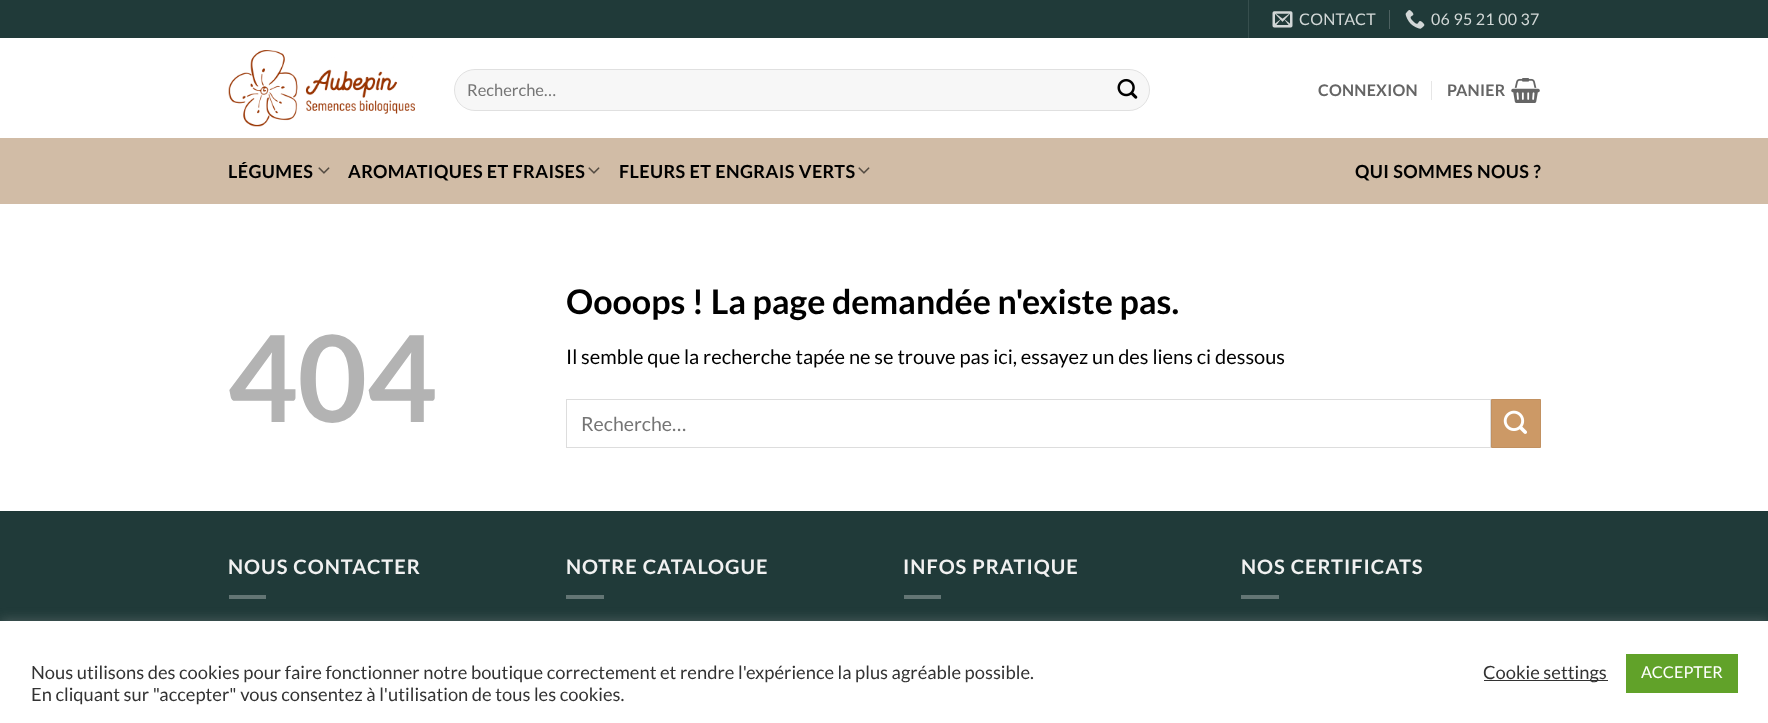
<!DOCTYPE html>
<meta charset="utf-8">
<style>body { margin: 0 } canvas { display: block }</style>
<canvas id="canvas" width="1768" height="723"></canvas>
<img id="img1" src="images/1.png" hidden>
<img id="img2" src="images/2.png" hidden>
<img id="img3" src="images/3.png" hidden>
<img id="img4" src="images/4.png" hidden>
<img id="img5" src="images/5.png" hidden>
<img id="img6" src="images/6.png" hidden>
<img id="img7" src="images/7.png" hidden>
<script>
window.onload = function () {
    const canvas = document.getElementById('canvas');
    const context = canvas.getContext('2d');
    context.miterLimit = 4;
    context.fontKerning = 'normal';

    context.fillStyle = 'rgb(255, 255, 255)';
    context.fillRect(0, 0, 1768, 723);
    context.fillStyle = 'rgb(32, 58, 57)';
    context.fillRect(0, 0, 1768, 38);
    context.fillStyle = 'rgb(54, 78, 77)';
    context.fillRect(1248, 0, 1, 38);
    context.drawImage(document.getElementById('img1'), 1272, 11, 21, 17);
    context.fillStyle = 'rgb(77, 97, 97)';
    context.fillRect(1389, 10, 1, 19);
    context.drawImage(document.getElementById('img2'), 1405, 10, 20, 19);
    context.drawImage(document.getElementById('img3'), 228, 50, 187, 77);
    context.fillStyle = 'rgb(247, 247, 247)';
    context.beginPath();
    context.roundRect(454, 69, 696, 42, 21);
    context.fill();
    context.beginPath();
    context.roundRect(454.5, 69.5, 695, 41, 20.5);
    context.strokeStyle = 'rgba(0, 0, 0, 0.09)';
    context.stroke();
    context.drawImage(document.getElementById('img4'), 1117, 78, 21, 21);
    context.fillStyle = 'rgb(230, 230, 230)';
    context.fillRect(1431, 81, 1, 19);
    context.drawImage(document.getElementById('img5'), 1511, 78, 29, 25);
    context.fillStyle = 'rgb(209, 188, 166)';
    context.fillRect(0, 138, 1768, 66);
    context.drawImage(document.getElementById('img6'), 318, 167, 12, 7);
    context.drawImage(document.getElementById('img6'), 588, 167, 12, 7);
    context.drawImage(document.getElementById('img6'), 858, 167, 12, 7);
    context.strokeStyle = 'rgb(221, 221, 221)';
    context.strokeRect(566.5, 399.5, 924, 48);
    context.fillStyle = 'rgb(204, 153, 102)';
    context.beginPath();
    context.rect(1491.5, 399.5, 49, 48);
    context.fill();
    context.strokeStyle = 'rgb(194, 145, 97)';
    context.stroke();
    context.drawImage(document.getElementById('img7'), 1503, 410, 24, 24);
    context.fillStyle = 'rgb(32, 58, 57)';
    context.fillRect(0, 512, 1768, 109);
    context.fillStyle = 'rgb(30, 55, 54)';
    context.fillRect(0, 511, 1768, 1);
    context.fillStyle = 'rgb(99, 117, 116)';
    context.fillRect(229, 595, 37, 4);
    context.fillRect(566, 595, 38, 4);
    context.fillRect(904, 595, 37, 4);
    context.fillRect(1241, 595, 38, 4);
    context.fillStyle = 'rgba(172, 171, 171, 0.3)';
    context.filter = 'blur(6px)';
    context.beginPath();
    context.rect(0, 620, 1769, 103);
    context.fill();
    context.filter = 'none';
    context.fillStyle = 'rgb(255, 255, 255)';
    context.fillRect(0, 621, 1768, 102);
    context.fillStyle = 'rgb(51, 51, 51)';
    context.fillRect(1484, 680, 124, 1);
    context.fillStyle = 'rgb(97, 162, 41)';
    context.fillRect(1626, 654, 112, 39);
    context.letterSpacing = '0.25px';
    context.font = '16px Lato';
    context.fillStyle = 'rgb(210, 216, 215)';
    context.fillText('CONTACT', 1299, 25);
    context.fillText('06 95 21 00 37', 1431, 25);
    context.letterSpacing = '0px';
    context.font = '16.5px Lato';
    context.fillStyle = 'rgb(117, 117, 117)';
    context.fillText('Recherche…', 467, 96);
    context.letterSpacing = '0.25px';
    context.font = 'bold 16px Lato';
    context.fillStyle = 'rgb(101, 101, 101)';
    context.fillText('CONNEXION', 1318, 96);
    context.fillText('PANIER', 1447, 96);
    context.letterSpacing = '0.4px';
    context.font = 'bold 18px Lato';
    context.fillStyle = 'rgb(0, 0, 0)';
    context.fillText('LÉGUMES', 228, 178);
    context.fillText('AROMATIQUES ET FRAISES', 348, 178);
    context.fillText('FLEURS ET ENGRAIS VERTS', 619, 178);
    context.fillText('QUI SOMMES NOUS ?', 1355, 178);
    context.letterSpacing = '0px';
    context.font = 'bold 120px Lato';
    context.fillStyle = 'rgb(179, 179, 179)';
    context.fillText('404', 228, 422);
    context.font = 'bold 34px Lato';
    context.fillStyle = 'rgb(0, 0, 0)';
    context.fillText('Oooops ! La page demandée n\'existe pas.', 566, 314);
    context.font = '20px Lato';
    context.fillText('Il semble que la recherche tapée ne se trouve pas ici, essayez un des liens ci dessous', 566, 364);
    context.font = '19.5px Lato';
    context.fillStyle = 'rgb(117, 117, 117)';
    context.fillText('Recherche…', 581, 431);
    context.letterSpacing = '1px';
    context.font = 'bold 20px Lato';
    context.fillStyle = 'rgb(241, 241, 241)';
    context.fillText('NOUS CONTACTER', 228, 574);
    context.fillText('NOTRE CATALOGUE', 566, 574);
    context.fillText('INFOS PRATIQUE', 903, 574);
    context.fillText('NOS CERTIFICATS', 1241, 574);
    context.letterSpacing = '0px';
    context.font = '18.33px Lato';
    context.fillStyle = 'rgb(51, 51, 51)';
    context.fillText('Nous utilisons des cookies pour faire fonctionner notre boutique correctement et rendre l\'expérience la plus agréable possible.', 31, 679);
    context.fillText('En cliquant sur "accepter" vous consentez à l\'utilisation de tous les cookies.', 31, 701);
    context.fillText('Cookie settings', 1483, 679);
    context.font = '16.25px Lato';
    context.fillStyle = 'rgb(255, 255, 255)';
    context.fillText('ACCEPTER', 1641, 678);
};
</script>
